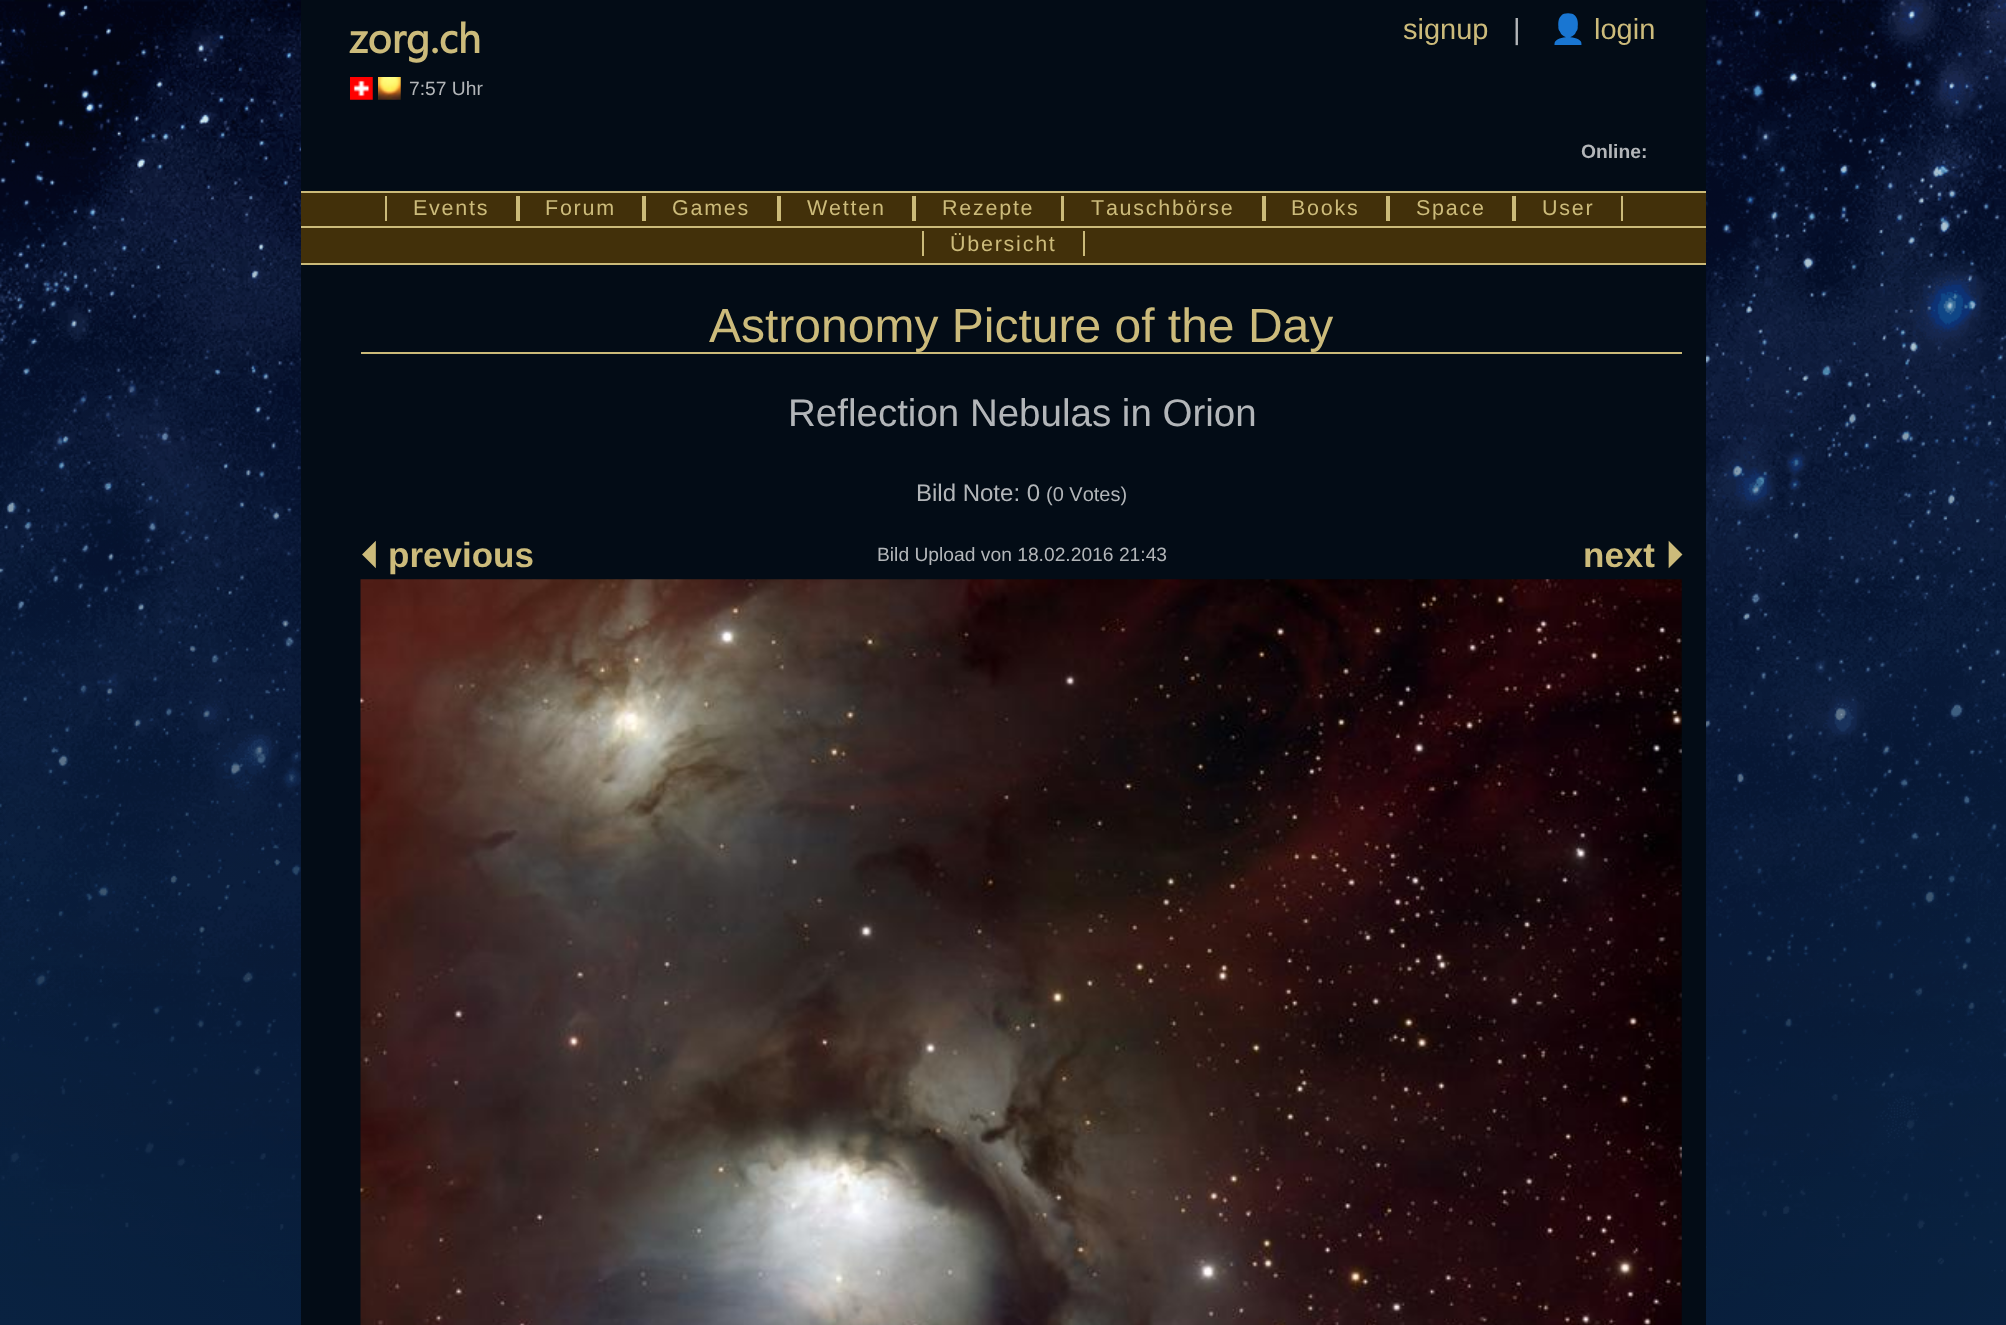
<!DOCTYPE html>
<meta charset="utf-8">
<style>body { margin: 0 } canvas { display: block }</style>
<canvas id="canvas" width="2006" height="1325"></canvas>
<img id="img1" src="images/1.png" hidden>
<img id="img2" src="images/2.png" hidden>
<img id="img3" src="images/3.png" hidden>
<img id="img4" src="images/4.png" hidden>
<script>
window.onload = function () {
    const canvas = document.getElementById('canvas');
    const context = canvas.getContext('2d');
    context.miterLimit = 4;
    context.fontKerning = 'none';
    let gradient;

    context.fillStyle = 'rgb(255, 255, 255)';
    context.fillRect(0, 0, 2006, 1325);
    context.drawImage(document.getElementById('img1'), 0, 0, 2006, 1325);
    context.fillStyle = 'rgb(3, 12, 22)';
    context.fillRect(301, 0, 1405, 191);
    context.drawImage(document.getElementById('img2'), 350, 77, 23, 23);
    context.drawImage(document.getElementById('img3'), 378, 77, 23, 23);
    context.fillStyle = 'rgb(66, 48, 10)';
    context.fillRect(301, 193, 1405, 33);
    context.fillStyle = 'rgb(203, 186, 121)';
    context.fillRect(301, 191, 1405, 2);
    context.fillRect(516, 196, 4, 25);
    context.fillRect(385, 196, 2, 25);
    context.fillRect(642, 196, 4, 25);
    context.fillRect(777, 196, 4, 25);
    context.fillRect(912, 196, 4, 25);
    context.fillRect(1061, 196, 3, 25);
    context.fillRect(1262, 196, 4, 25);
    context.fillRect(1386, 196, 4, 25);
    context.fillRect(1512, 196, 4, 25);
    context.fillRect(1621, 196, 2, 25);
    context.fillStyle = 'rgb(66, 48, 10)';
    context.fillRect(301, 228, 1405, 35);
    context.fillStyle = 'rgb(203, 186, 121)';
    context.fillRect(301, 226, 1405, 2);
    context.fillRect(301, 263, 1405, 2);
    context.fillRect(1083, 231, 2, 25);
    context.fillRect(922, 231, 2, 25);
    gradient = context.createLinearGradient(1004, 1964, 1004, 264);
    gradient.addColorStop(0, 'rgb(10, 35, 66)');
    gradient.addColorStop(0.2, 'rgb(3, 12, 22)');
    context.fillStyle = gradient;
    context.fillRect(301, 265, 1405, 1060);
    context.fillStyle = 'rgb(203, 186, 121)';
    context.fillRect(361, 352, 1321, 2);
    context.drawImage(document.getElementById('img4'), 360, 579, 1322, 746);
    context.font = 'bold 41px Segoe UI';
    context.fillStyle = 'rgb(204, 187, 123)';
    context.fillText('zorg.ch', 349, 53);
    context.font = '29px Liberation Sans';
    context.fillText('signup', 1403, 39);
    context.fillStyle = 'rgb(179, 182, 185)';
    context.fillText('|', 1513, 39);
    context.font = '29px Noto Color Emoji';
    context.fillStyle = 'rgb(204, 187, 123)';
    context.fillText('👤', 1550, 39);
    context.font = '29px Liberation Sans';
    context.fillText('login', 1594, 39);
    context.font = '19.25px Liberation Sans';
    context.fillStyle = 'rgb(179, 182, 185)';
    context.fillText('7:57 Uhr', 409, 95);
    context.font = 'bold 19.25px Liberation Sans';
    context.fillText('Online:', 1581, 158);
    context.letterSpacing = '1.75px';
    context.font = '21.5px Liberation Sans';
    context.fillStyle = 'rgb(204, 187, 123)';
    context.fillText('Events', 413, 215);
    context.fillText('Forum', 545, 215);
    context.fillText('Games', 672, 215);
    context.fillText('Wetten', 807, 215);
    context.fillText('Rezepte', 942, 215);
    context.fillText('Tauschbörse', 1091, 215);
    context.fillText('Books', 1291, 215);
    context.fillText('Space', 1416, 215);
    context.fillText('User', 1542, 215);
    context.fillText('Übersicht', 950, 251);
    context.letterSpacing = '0px';
    context.font = '48px Liberation Sans';
    context.fillText('Astronomy Picture of the Day', 709, 342);
    context.font = '38.5px Liberation Sans';
    context.fillStyle = 'rgb(179, 182, 185)';
    context.fillText('Reflection Nebulas in Orion', 788, 426);
    context.font = '24px Liberation Sans';
    context.fillText('Bild Note: 0', 916, 501);
    context.font = '20px Liberation Sans';
    context.fillText('(0 Votes)', 1046, 501);
    context.font = 'bold 35px FreeSans';
    context.fillStyle = 'rgb(204, 187, 123)';
    context.fillText('⏴', 361, 567);
    context.font = 'bold 35px Liberation Sans';
    context.fillText('previous', 388, 567);
    context.font = '19.25px Liberation Sans';
    context.fillStyle = 'rgb(179, 182, 185)';
    context.fillText('Bild Upload von 18.02.2016 21:43', 877, 561);
    context.font = 'bold 35px Liberation Sans';
    context.fillStyle = 'rgb(204, 187, 123)';
    context.fillText('next', 1583, 567);
    context.font = 'bold 35px FreeSans';
    context.fillText('⏵', 1665, 567);
};
</script>
